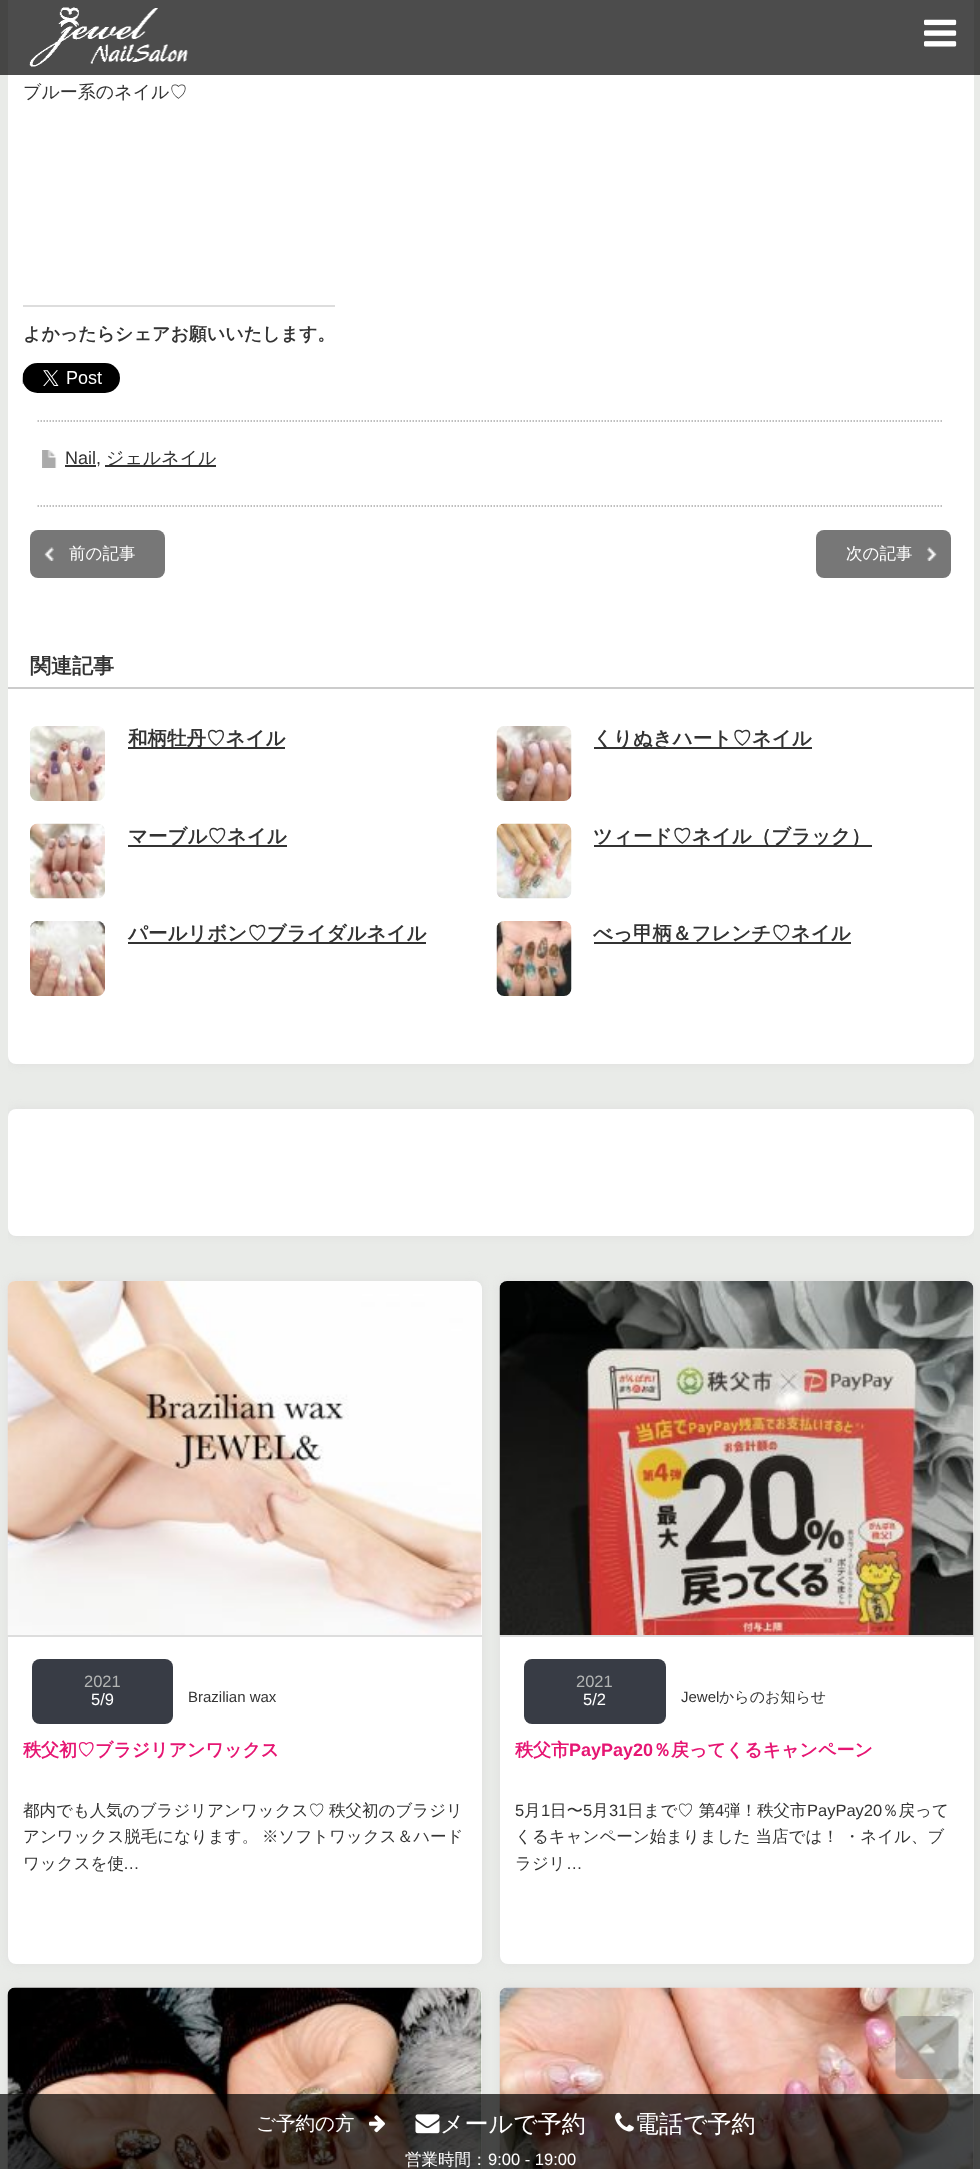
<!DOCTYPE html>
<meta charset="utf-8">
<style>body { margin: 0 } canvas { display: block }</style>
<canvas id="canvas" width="980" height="2169"></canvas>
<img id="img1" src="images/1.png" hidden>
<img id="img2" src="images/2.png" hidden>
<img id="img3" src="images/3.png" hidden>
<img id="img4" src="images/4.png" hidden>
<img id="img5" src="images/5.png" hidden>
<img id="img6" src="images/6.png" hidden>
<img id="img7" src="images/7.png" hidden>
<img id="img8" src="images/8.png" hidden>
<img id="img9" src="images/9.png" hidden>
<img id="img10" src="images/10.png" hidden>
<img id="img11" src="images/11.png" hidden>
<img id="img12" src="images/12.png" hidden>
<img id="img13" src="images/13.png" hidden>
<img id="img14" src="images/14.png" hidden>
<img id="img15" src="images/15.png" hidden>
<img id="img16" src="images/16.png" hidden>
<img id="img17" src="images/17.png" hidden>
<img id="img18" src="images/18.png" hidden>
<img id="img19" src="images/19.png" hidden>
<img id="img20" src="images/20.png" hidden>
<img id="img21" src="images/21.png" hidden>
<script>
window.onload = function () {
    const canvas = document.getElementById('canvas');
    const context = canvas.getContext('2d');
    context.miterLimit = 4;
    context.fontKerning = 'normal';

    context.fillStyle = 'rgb(233, 235, 232)';
    context.fillRect(0, 0, 980, 2169);
    context.save();
    context.beginPath();
    context.roundRect(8, -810, 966, 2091, 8);
    context.clip();
    context.fillStyle = 'rgb(221, 221, 221)';
    context.filter = 'blur(4px)';
    context.beginPath();
    context.roundRect(8, -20, 966, 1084, 8);
    context.fill();
    context.filter = 'none';
    context.restore();
    context.fillStyle = 'rgb(255, 255, 255)';
    context.beginPath();
    context.roundRect(8, -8, 966, 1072, 8);
    context.fill();
    context.fillStyle = 'rgba(0, 0, 0, 0.7)';
    context.fillRect(0, 0, 980, 75);
    context.drawImage(document.getElementById('img1'), 29, 7, 159, 60);
    context.drawImage(document.getElementById('img2'), 924, 19, 33, 28);
    context.fillStyle = 'rgb(221, 221, 221)';
    context.fillRect(23, 305, 312, 2);
    context.drawImage(document.getElementById('img3'), 22, 379, 2, 5);
    context.drawImage(document.getElementById('img4'), 22, 363, 98, 30);
    context.beginPath();
    context.moveTo(37.5, 421);
    context.lineTo(943.5, 421);
    context.strokeStyle = 'rgb(170, 170, 170)';
    context.lineWidth = 1.5;
    context.setLineDash([1.5, 1.5]);
    context.stroke();
    context.beginPath();
    context.moveTo(37.5, 506);
    context.lineTo(943.5, 506);
    context.stroke();
    context.drawImage(document.getElementById('img5'), 42, 450, 15, 18);
    context.fillStyle = 'rgb(51, 51, 51)';
    context.fillRect(65, 465, 31, 2);
    context.fillRect(105, 465, 111, 2);
    context.fillStyle = 'rgb(119, 119, 119)';
    context.beginPath();
    context.roundRect(30, 530, 135, 48, 8);
    context.fill();
    context.drawImage(document.getElementById('img6'), 44, 547, 10, 14);
    context.beginPath();
    context.roundRect(816, 530, 135, 48, 8);
    context.fill();
    context.drawImage(document.getElementById('img7'), 927, 547, 10, 14);
    context.fillStyle = 'rgb(204, 204, 204)';
    context.fillRect(8, 687, 966, 2);
    context.drawImage(document.getElementById('img8'), 30, 726, 75, 75);
    context.fillStyle = 'rgb(51, 51, 51)';
    context.fillRect(128, 747, 157, 2);
    context.drawImage(document.getElementById('img9'), 496, 726, 76, 75);
    context.fillRect(594, 747, 218, 2);
    context.drawImage(document.getElementById('img10'), 30, 823, 75, 76);
    context.fillRect(128, 845, 159, 2);
    context.drawImage(document.getElementById('img11'), 496, 823, 76, 76);
    context.fillRect(594, 845, 278, 2);
    context.drawImage(document.getElementById('img12'), 30, 921, 75, 75);
    context.fillRect(128, 942, 298, 2);
    context.drawImage(document.getElementById('img13'), 496, 921, 76, 75);
    context.fillRect(594, 942, 257, 2);
    context.save();
    context.beginPath();
    context.roundRect(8, -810, 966, 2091, 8);
    context.clip();
    context.fillStyle = 'rgb(221, 221, 221)';
    context.filter = 'blur(4px)';
    context.beginPath();
    context.roundRect(8, 1109, 966, 127, 8);
    context.fill();
    context.filter = 'none';
    context.restore();
    context.fillStyle = 'rgb(255, 255, 255)';
    context.beginPath();
    context.roundRect(8, 1109, 966, 127, 8);
    context.fill();
    context.fillStyle = 'rgb(221, 221, 221)';
    context.filter = 'blur(4px)';
    context.beginPath();
    context.roundRect(8, 1281, 474, 683, 8);
    context.fill();
    context.filter = 'none';
    context.fillStyle = 'rgb(255, 255, 255)';
    context.beginPath();
    context.roundRect(8, 1281, 474, 683, 8);
    context.fill();
    context.drawImage(document.getElementById('img14'), 7, 1281, 475, 354);
    context.fillStyle = 'rgb(221, 221, 221)';
    context.fillRect(8, 1635, 474, 2);
    context.fillStyle = 'rgb(56, 60, 69)';
    context.beginPath();
    context.roundRect(32, 1659, 141, 65, 8);
    context.fill();
    context.fillStyle = 'rgb(221, 221, 221)';
    context.filter = 'blur(4px)';
    context.beginPath();
    context.roundRect(500, 1281, 474, 683, 8);
    context.fill();
    context.filter = 'none';
    context.fillStyle = 'rgb(255, 255, 255)';
    context.beginPath();
    context.roundRect(500, 1281, 474, 683, 8);
    context.fill();
    context.drawImage(document.getElementById('img15'), 499, 1281, 475, 354);
    context.fillStyle = 'rgb(221, 221, 221)';
    context.fillRect(500, 1635, 474, 2);
    context.fillStyle = 'rgb(56, 60, 69)';
    context.beginPath();
    context.roundRect(524, 1659, 142, 65, 8);
    context.fill();
    context.fillStyle = 'rgb(221, 221, 221)';
    context.filter = 'blur(4px)';
    context.beginPath();
    context.roundRect(8, 1988, 474, 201, 8);
    context.fill();
    context.filter = 'none';
    context.fillStyle = 'rgb(255, 255, 255)';
    context.beginPath();
    context.roundRect(8, 1988, 474, 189, 8);
    context.fill();
    context.drawImage(document.getElementById('img16'), 7, 1987, 475, 182);
    context.fillStyle = 'rgb(221, 221, 221)';
    context.filter = 'blur(4px)';
    context.beginPath();
    context.roundRect(500, 1988, 474, 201, 8);
    context.fill();
    context.filter = 'none';
    context.fillStyle = 'rgb(255, 255, 255)';
    context.beginPath();
    context.roundRect(500, 1988, 474, 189, 8);
    context.fill();
    context.drawImage(document.getElementById('img17'), 499, 1987, 475, 182);
    context.drawImage(document.getElementById('img18'), 895, 2016, 64, 63);
    context.fillStyle = 'rgba(0, 0, 0, 0.7)';
    context.fillRect(0, 2094, 980, 75);
    context.drawImage(document.getElementById('img19'), 369, 2115, 16, 18);
    context.drawImage(document.getElementById('img20'), 415, 2114, 25, 20);
    context.drawImage(document.getElementById('img21'), 615, 2112, 19, 20);
    context.font = '500 18px WenQuanYi Zen Hei';
    context.fillStyle = 'rgb(51, 51, 51)';
    context.fillText('ブルー系のネイル♡', 23, 98);
    context.font = 'bold 18px WenQuanYi Zen Hei';
    context.fillText('よかったらシェアお願いいたします。', 23, 340);
    context.font = '18px Liberation Sans';
    context.fillText('Nail,', 65, 464);
    context.font = '500 18px WenQuanYi Zen Hei';
    context.fillText('ジェルネイル', 106, 464);
    context.font = '500 16.5px WenQuanYi Zen Hei';
    context.fillStyle = 'rgb(255, 255, 255)';
    context.fillText('前の記事', 69, 559);
    context.fillText('次の記事', 846, 559);
    context.font = 'bold 21px WenQuanYi Zen Hei';
    context.fillStyle = 'rgb(51, 51, 51)';
    context.fillText('関連記事', 30, 673);
    context.font = 'bold 19.5px WenQuanYi Zen Hei';
    context.fillText('和柄牡丹♡ネイル', 128, 745);
    context.fillText('くりぬきハート♡ネイル', 593, 745);
    context.fillText('マーブル♡ネイル', 128, 843);
    context.fillText('ツィード♡ネイル（ブラック）', 593, 843);
    context.fillText('パールリボン♡ブライダルネイル', 128, 940);
    context.fillText('べっ甲柄＆フレンチ♡ネイル', 593, 940);
    context.font = '16.5px Liberation Sans';
    context.fillStyle = 'rgb(179, 181, 180)';
    context.fillText('2021', 84, 1687);
    context.fillStyle = 'rgb(255, 255, 255)';
    context.fillText('5/9', 91, 1705);
    context.font = '15px Liberation Sans';
    context.fillStyle = 'rgb(51, 51, 51)';
    context.fillText('Brazilian wax', 188, 1702);
    context.font = 'bold 18px WenQuanYi Zen Hei';
    context.fillStyle = 'rgb(230, 22, 115)';
    context.fillText('秩父初♡ブラジリアンワックス', 23, 1756);
    context.font = '500 16.5px WenQuanYi Zen Hei';
    context.fillStyle = 'rgb(51, 51, 51)';
    context.fillText('都内でも人気のブラジリアンワックス♡', 23, 1816);
    context.fillText('秩父初のブラジリ', 329, 1816);
    context.fillText('アンワックス脱毛になります。', 23, 1842);
    context.fillText('※ソフトワックス＆ハード', 262, 1842);
    context.fillText('ワックスを使', 23, 1869);
    context.font = '16.5px Liberation Sans';
    context.fillText('…', 123, 1869);
    context.fillStyle = 'rgb(179, 181, 180)';
    context.fillText('2021', 576, 1687);
    context.fillStyle = 'rgb(255, 255, 255)';
    context.fillText('5/2', 583, 1705);
    context.font = '15px Liberation Sans';
    context.fillStyle = 'rgb(51, 51, 51)';
    context.fillText('Jewel', 681, 1702);
    context.font = '500 15px WenQuanYi Zen Hei';
    context.fillText('からのお知らせ', 719, 1702);
    context.font = 'bold 18px WenQuanYi Zen Hei';
    context.fillStyle = 'rgb(230, 22, 115)';
    context.fillText('秩父市', 515, 1756);
    context.font = 'bold 18px Liberation Sans';
    context.fillText('PayPay20', 569, 1756);
    context.font = 'bold 18px WenQuanYi Zen Hei';
    context.fillText('％戻ってくるキャンペーン', 653, 1756);
    context.font = '16.5px Liberation Sans';
    context.fillStyle = 'rgb(51, 51, 51)';
    context.fillText('5', 515, 1816);
    context.font = '500 16.5px WenQuanYi Zen Hei';
    context.fillText('月', 524, 1816);
    context.font = '16.5px Liberation Sans';
    context.fillText('1', 541, 1816);
    context.font = '500 16.5px WenQuanYi Zen Hei';
    context.fillText('日〜', 550, 1816);
    context.font = '16.5px Liberation Sans';
    context.fillText('5', 583, 1816);
    context.font = '500 16.5px WenQuanYi Zen Hei';
    context.fillText('月', 592, 1816);
    context.font = '16.5px Liberation Sans';
    context.fillText('31', 609, 1816);
    context.font = '500 16.5px WenQuanYi Zen Hei';
    context.fillText('日まで♡ 第', 627, 1816);
    context.font = '16.5px Liberation Sans';
    context.fillText('4', 715, 1816);
    context.font = '500 16.5px WenQuanYi Zen Hei';
    context.fillText('弾！秩父市', 724, 1816);
    context.font = '16.5px Liberation Sans';
    context.fillText('PayPay20', 807, 1816);
    context.font = '500 16.5px WenQuanYi Zen Hei';
    context.fillText('％戻って', 882, 1816);
    context.fillText('くるキャンペーン始まりました 当店では！ ・ネイル、ブ', 515, 1842);
    context.fillText('ラジリ', 515, 1869);
    context.font = '16.5px Liberation Sans';
    context.fillText('…', 566, 1869);
    context.font = '500 19.5px WenQuanYi Zen Hei';
    context.fillStyle = 'rgb(255, 255, 255)';
    context.fillText('ご予約の方', 256, 2130);
    context.font = '500 24px WenQuanYi Zen Hei';
    context.fillText('メールで予約', 440, 2132);
    context.fillText('電話で予約', 635, 2132);
    context.font = '500 16.5px WenQuanYi Zen Hei';
    context.fillText('営業時間：', 405, 2165);
    context.font = '16.5px Liberation Sans';
    context.fillText('9:00 - 19:00', 488, 2165);
};
</script>
